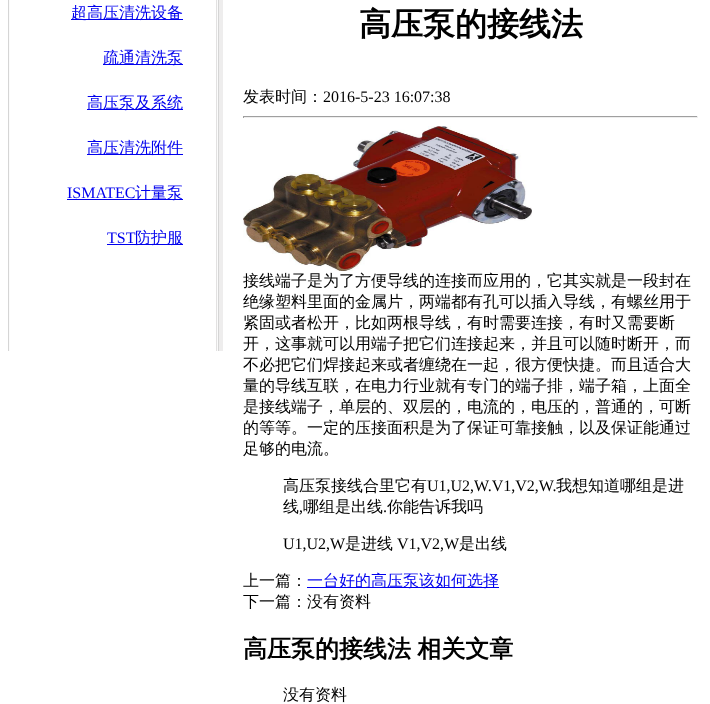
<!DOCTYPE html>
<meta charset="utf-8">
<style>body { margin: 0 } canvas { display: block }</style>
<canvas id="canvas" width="710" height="704"></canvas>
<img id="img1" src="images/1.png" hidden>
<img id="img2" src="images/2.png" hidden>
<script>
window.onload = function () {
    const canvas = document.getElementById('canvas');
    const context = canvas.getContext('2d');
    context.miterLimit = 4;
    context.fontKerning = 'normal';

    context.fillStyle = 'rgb(255, 255, 255)';
    context.fillRect(0, 0, 710, 704);
    context.drawImage(document.getElementById('img1'), 8, 0, 215, 351);
    context.fillStyle = 'rgb(0, 0, 238)';
    context.fillRect(71, 19, 112, 1);
    context.fillRect(103, 64, 80, 1);
    context.fillRect(87, 109, 96, 1);
    context.fillRect(87, 154, 96, 1);
    context.fillRect(67, 199, 116, 1);
    context.fillRect(107, 244, 76, 1);
    context.fillStyle = 'rgb(159, 159, 159)';
    context.fillRect(243, 116, 455, 1);
    context.fillStyle = 'rgb(238, 238, 238)';
    context.fillRect(697, 116, 1, 2);
    context.fillRect(243, 117, 455, 1);
    context.fillStyle = 'rgb(159, 159, 159)';
    context.fillRect(243, 116, 1, 2);
    context.drawImage(document.getElementById('img2'), 243, 126, 289, 145);
    context.fillStyle = 'rgb(0, 0, 238)';
    context.fillRect(307, 587, 192, 1);
    context.font = '500 16px WenQuanYi Zen Hei';
    context.fillText('超高压清洗设备', 71, 18);
    context.fillText('疏通清洗泵', 103, 63);
    context.fillText('高压泵及系统', 87, 108);
    context.fillText('高压清洗附件', 87, 153);
    context.font = '16px Liberation Serif';
    context.fillText('ISMATEC', 67, 198);
    context.font = '500 16px WenQuanYi Zen Hei';
    context.fillText('计量泵', 135, 198);
    context.font = '16px Liberation Serif';
    context.fillText('TST', 107, 243);
    context.font = '500 16px WenQuanYi Zen Hei';
    context.fillText('防护服', 135, 243);
    context.font = 'bold 32px WenQuanYi Zen Hei';
    context.fillStyle = 'rgb(0, 0, 0)';
    context.fillText('高压泵的接线法', 359, 35);
    context.font = '500 16px WenQuanYi Zen Hei';
    context.fillText('发表时间：', 243, 102);
    context.font = '16px Liberation Serif';
    context.fillText('2016-5-23 16:07:38', 323, 102);
    context.font = '500 16px WenQuanYi Zen Hei';
    context.fillText('接线端子是为了方便导线的连接而应用的，它其实就是一段封在', 243, 286);
    context.fillText('绝缘塑料里面的金属片，两端都有孔可以插入导线，有螺丝用于', 243, 307);
    context.fillText('紧固或者松开，比如两根导线，有时需要连接，有时又需要断', 243, 328);
    context.fillText('开，这事就可以用端子把它们连接起来，并且可以随时断开，而', 243, 349);
    context.fillText('不必把它们焊接起来或者缠绕在一起，很方便快捷。而且适合大', 243, 370);
    context.fillText('量的导线互联，在电力行业就有专门的端子排，端子箱，上面全', 243, 391);
    context.fillText('是接线端子，单层的、双层的，电流的，电压的，普通的，可断', 243, 412);
    context.fillText('的等等。一定的压接面积是为了保证可靠接触，以及保证能通过', 243, 433);
    context.fillText('足够的电流。', 243, 454);
    context.fillText('高压泵接线合里它有', 283, 491);
    context.font = '16px Liberation Serif';
    context.fillText('U1,U2,W.V1,V2,W.', 427, 491);
    context.font = '500 16px WenQuanYi Zen Hei';
    context.fillText('我想知道哪组是进', 556, 491);
    context.fillText('线', 283, 512);
    context.font = '16px Liberation Serif';
    context.fillText(',', 299, 512);
    context.font = '500 16px WenQuanYi Zen Hei';
    context.fillText('哪组是出线', 303, 512);
    context.font = '16px Liberation Serif';
    context.fillText('.', 383, 512);
    context.font = '500 16px WenQuanYi Zen Hei';
    context.fillText('你能告诉我吗', 387, 512);
    context.font = '16px Liberation Serif';
    context.fillText('U1,U2,W', 283, 549);
    context.font = '500 16px WenQuanYi Zen Hei';
    context.fillText('是进线', 345, 549);
    context.font = '16px Liberation Serif';
    context.fillText('V1,V2,W', 397, 549);
    context.font = '500 16px WenQuanYi Zen Hei';
    context.fillText('是出线', 459, 549);
    context.fillText('上一篇：', 243, 586);
    context.fillStyle = 'rgb(0, 0, 238)';
    context.fillText('一台好的高压泵该如何选择', 307, 586);
    context.fillStyle = 'rgb(0, 0, 0)';
    context.fillText('下一篇：没有资料', 243, 607);
    context.wordSpacing = '-1px';
    context.font = 'bold 24px WenQuanYi Zen Hei';
    context.fillText('高压泵的接线法 相关文章', 243, 657);
    context.wordSpacing = '0px';
    context.font = '500 16px WenQuanYi Zen Hei';
    context.fillText('没有资料', 283, 700);
};
</script>
